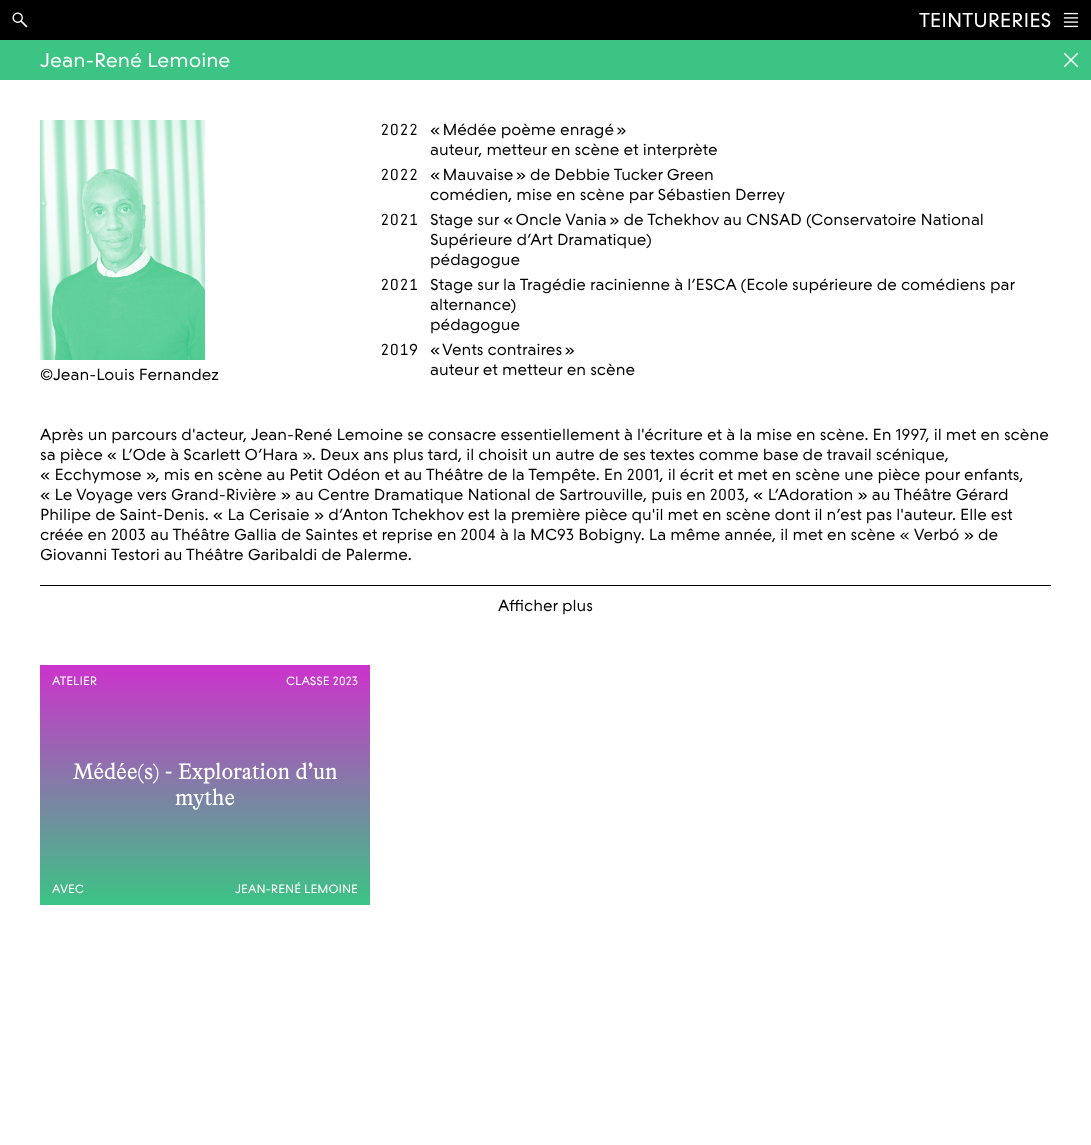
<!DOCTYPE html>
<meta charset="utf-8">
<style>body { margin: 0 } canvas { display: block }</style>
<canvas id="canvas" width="1091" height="1145"></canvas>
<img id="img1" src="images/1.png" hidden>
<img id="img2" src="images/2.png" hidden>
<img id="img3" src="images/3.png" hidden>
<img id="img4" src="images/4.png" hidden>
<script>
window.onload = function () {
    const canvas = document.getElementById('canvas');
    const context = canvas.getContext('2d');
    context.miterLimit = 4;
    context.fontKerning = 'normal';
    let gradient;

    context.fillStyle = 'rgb(255, 255, 255)';
    context.fillRect(0, 0, 1091, 1145);
    context.fillStyle = 'rgb(0, 0, 0)';
    context.fillRect(0, 0, 1091, 40);
    context.drawImage(document.getElementById('img1'), 12, 12, 16, 16);
    context.drawImage(document.getElementById('img2'), 1063, 12, 16, 16);
    context.fillStyle = 'rgb(59, 196, 132)';
    context.fillRect(0, 40, 1091, 40);
    context.drawImage(document.getElementById('img3'), 1063, 52, 16, 16);
    context.drawImage(document.getElementById('img4'), 40, 120, 165, 240);
    context.fillStyle = 'rgb(0, 0, 0)';
    context.fillRect(40, 585, 1011, 1);
    gradient = context.createLinearGradient(205, 665, 205, 905);
    gradient.addColorStop(0, 'rgb(204, 51, 204)');
    gradient.addColorStop(1, 'rgb(59, 196, 132)');
    context.fillStyle = gradient;
    context.fillRect(40, 665, 330, 240);
    context.font = '20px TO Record';
    context.fillStyle = 'rgb(255, 255, 255)';
    context.fillText('TEINTURERIES', 919, 27);
    context.fillText('Jean-René Lemoine', 40, 67);
    context.font = '16px TO Record';
    context.fillStyle = 'rgb(0, 0, 0)';
    context.fillText('©Jean-Louis Fernandez', 40, 380);
    context.font = '16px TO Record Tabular';
    context.fillText('2022', 380, 135);
    context.font = '16px TO Record';
    context.fillText('« Médée poème enragé »', 430, 135);
    context.fillText('auteur, metteur en scène et interprète', 430, 155);
    context.font = '16px TO Record Tabular';
    context.fillText('2022', 380, 180);
    context.font = '16px TO Record';
    context.fillText('« Mauvaise » de Debbie Tucker Green', 430, 180);
    context.fillText('comédien, mise en scène par Sébastien Derrey', 430, 200);
    context.font = '16px TO Record Tabular';
    context.fillText('2021', 380, 225);
    context.font = '16px TO Record';
    context.fillText('Stage sur « Oncle Vania » de Tchekhov au CNSAD (Conservatoire National', 430, 225);
    context.fillText('Supérieure d’Art Dramatique)', 430, 245);
    context.fillText('pédagogue', 430, 265);
    context.font = '16px TO Record Tabular';
    context.fillText('2021', 380, 290);
    context.font = '16px TO Record';
    context.fillText('Stage sur la Tragédie racinienne à l’ESCA (Ecole supérieure de comédiens par', 430, 290);
    context.fillText('alternance)', 430, 310);
    context.fillText('pédagogue', 430, 330);
    context.font = '16px TO Record Tabular';
    context.fillText('2019', 380, 355);
    context.font = '16px TO Record';
    context.fillText('« Vents contraires »', 430, 355);
    context.fillText('auteur et metteur en scène', 430, 375);
    context.fillText('Après un parcours d\'acteur, Jean-René Lemoine se consacre essentiellement à l\'écriture et à la mise en scène. En 1997, il met en scène', 40, 440);
    context.fillText('sa pièce « L’Ode à Scarlett O’Hara ». Deux ans plus tard, il choisit un autre de ses textes comme base de travail scénique,', 40, 460);
    context.fillText('« Ecchymose », mis en scène au Petit Odéon et au Théâtre de la Tempête. En 2001, il écrit et met en scène une pièce pour enfants,', 40, 480);
    context.fillText('« Le Voyage vers Grand-Rivière » au Centre Dramatique National de Sartrouville, puis en 2003, « L’Adoration » au Théâtre Gérard', 40, 500);
    context.fillText('Philipe de Saint-Denis. « La Cerisaie » d’Anton Tchekhov est la première pièce qu\'il met en scène dont il n’est pas l\'auteur. Elle est', 40, 520);
    context.fillText('créée en 2003 au Théâtre Gallia de Saintes et reprise en 2004 à la MC93 Bobigny. La même année, il met en scène « Verbó » de', 40, 540);
    context.fillText('Giovanni Testori au Théâtre Garibaldi de Palerme.', 40, 560);
    context.fillText('Afficher plus', 498, 611);
    context.font = '12px TO Record';
    context.fillStyle = 'rgb(255, 255, 255)';
    context.fillText('ATELIER', 52, 685);
    context.fillText('CLASSE 2023', 286, 685);
    context.font = '22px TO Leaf';
    context.fillText('Médée(s) - Exploration d’un', 73, 779);
    context.fillText('mythe', 175, 805);
    context.font = '12px TO Record';
    context.fillText('AVEC', 52, 893);
    context.fillText('JEAN-RENÉ LEMOINE', 235, 893);
};
</script>
